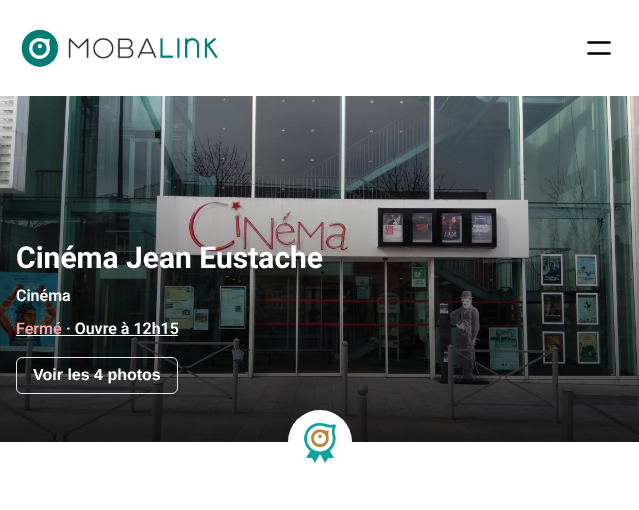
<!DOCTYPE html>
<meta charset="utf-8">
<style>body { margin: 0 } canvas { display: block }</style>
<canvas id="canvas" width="639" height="510"></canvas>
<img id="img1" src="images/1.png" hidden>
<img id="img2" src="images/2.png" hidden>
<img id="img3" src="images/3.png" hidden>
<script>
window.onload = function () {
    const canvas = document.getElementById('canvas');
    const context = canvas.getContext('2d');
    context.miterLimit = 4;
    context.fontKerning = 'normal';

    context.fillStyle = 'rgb(255, 255, 255)';
    context.fillRect(0, 0, 639, 510);
    context.drawImage(document.getElementById('img1'), 21, 29, 197, 38);
    context.beginPath();
    context.moveTo(588.5, 42.5);
    context.lineTo(609.5, 42.5);
    context.moveTo(588.5, 53.5);
    context.lineTo(609.5, 53.5);
    context.strokeStyle = 'rgb(0, 0, 0)';
    context.lineWidth = 2.7;
    context.lineCap = 'round';
    context.lineJoin = 'round';
    context.stroke();
    context.drawImage(document.getElementById('img2'), 0, 96, 639, 346);
    context.fillRect(16, 335, 162, 1);
    context.beginPath();
    context.roundRect(16.5, 357.5, 161, 36, 5.5);
    context.strokeStyle = 'rgb(229, 231, 235)';
    context.lineWidth = 1;
    context.lineJoin = 'miter';
    context.stroke();
    context.beginPath();
    context.arc(320, 442, 32, 0, 2 * Math.PI);
    context.fill();
    context.drawImage(document.getElementById('img3'), 304, 422, 32, 41);
    context.font = 'bold 30px Roboto';
    context.fillText('Cinéma Jean Eustache', 16, 268);
    context.font = '600 16px Roboto';
    context.fillText('Cinéma', 16, 301);
    context.fillStyle = 'rgb(252, 165, 165)';
    context.fillText('Fermé', 16, 334);
    context.fillStyle = 'rgb(255, 255, 255)';
    context.fillText('· Ouvre à 12h15', 66, 334);
    context.font = 'bold 16px Liberation Sans';
    context.fillText('Voir les 4 photos', 33, 380);
};
</script>
